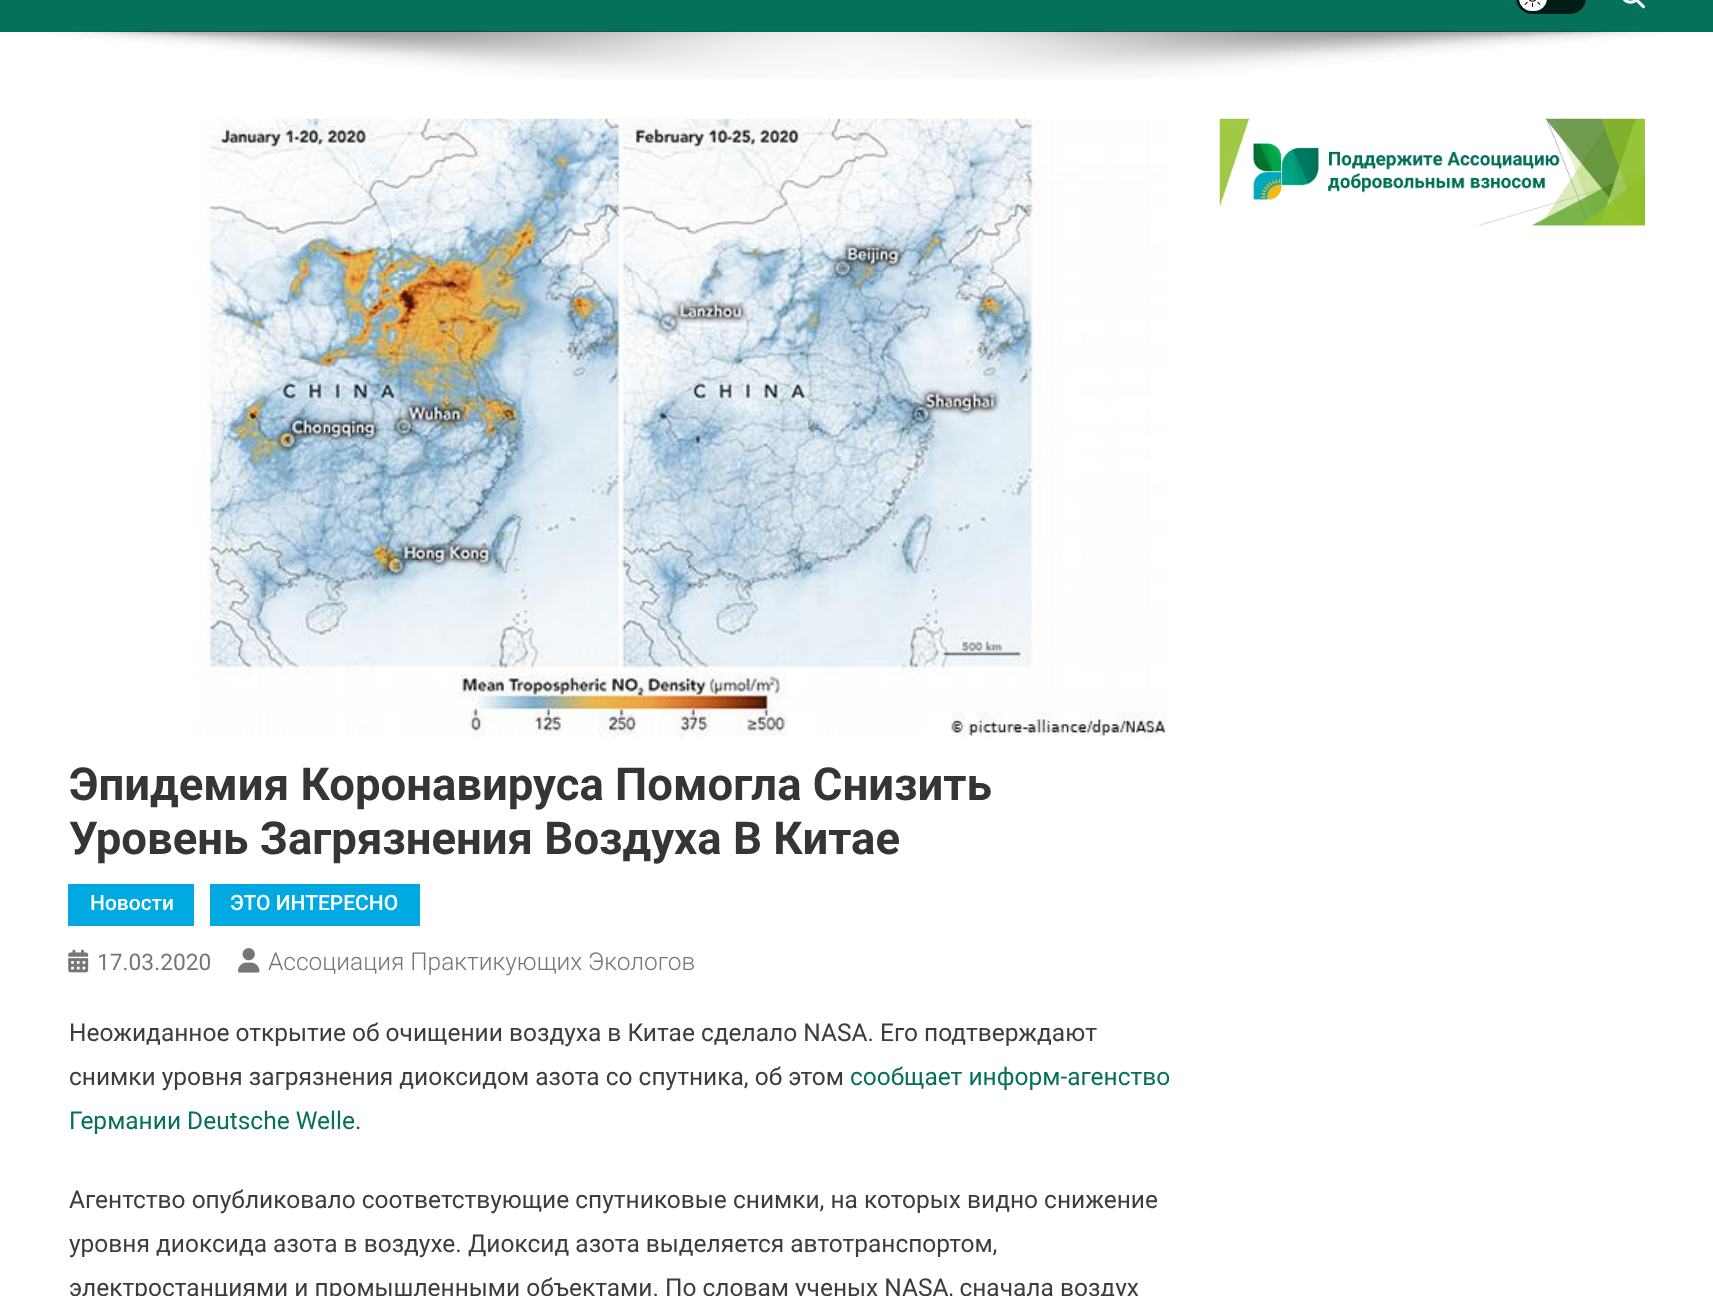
<!DOCTYPE html>
<meta charset="utf-8">
<style>body { margin: 0 } canvas { display: block }</style>
<canvas id="canvas" width="1713" height="1296"></canvas>
<img id="img1" src="images/1.png" hidden>
<img id="img2" src="images/2.png" hidden>
<img id="img3" src="images/3.png" hidden>
<img id="img4" src="images/4.png" hidden>
<img id="img5" src="images/5.png" hidden>
<img id="img6" src="images/6.png" hidden>
<img id="img7" src="images/7.png" hidden>
<script>
window.onload = function () {
    const canvas = document.getElementById('canvas');
    const context = canvas.getContext('2d');
    context.miterLimit = 4;
    context.fontKerning = 'normal';

    context.fillStyle = 'rgb(255, 255, 255)';
    context.fillRect(0, 0, 1713, 1296);
    context.fillStyle = 'rgb(5, 113, 90)';
    context.fillRect(0, 0, 1713, 32);
    context.fillStyle = 'rgb(1, 28, 23)';
    context.beginPath();
    context.roundRect(1516, -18, 70, 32, 17.5);
    context.fill();
    context.fillStyle = 'rgb(255, 255, 255)';
    context.beginPath();
    context.roundRect(1519, -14, 28, 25, 14);
    context.fill();
    context.drawImage(document.getElementById('img1'), 1524, 0, 17, 7);
    context.drawImage(document.getElementById('img2'), 1622, 0, 23, 9);
    context.drawImage(document.getElementById('img3'), 48, 31, 1616, 48);
    context.drawImage(document.getElementById('img4'), 1219, 118, 426, 108);
    context.drawImage(document.getElementById('img5'), 196, 118, 971, 619);
    context.fillStyle = 'rgb(0, 169, 224)';
    context.fillRect(68, 884, 126, 42);
    context.fillRect(210, 884, 210, 42);
    context.drawImage(document.getElementById('img6'), 68, 949, 21, 24);
    context.drawImage(document.getElementById('img7'), 238, 948, 22, 25);
    context.font = 'bold 45.5px Roboto';
    context.fillStyle = 'rgb(53, 53, 53)';
    context.fillText('Эпидемия Коронавируса Помогла Снизить', 69, 800);
    context.fillText('Уровень Загрязнения Воздуха В Китае', 69, 854);
    context.font = '500 21px Roboto';
    context.fillStyle = 'rgb(255, 255, 255)';
    context.fillText('Новости', 90, 910);
    context.fillText('ЭТО ИНТЕРЕСНО', 230, 910);
    context.font = '22.75px Roboto';
    context.fillStyle = 'rgb(118, 118, 118)';
    context.fillText('17.03.2020', 97, 970);
    context.font = '300 24.5px Roboto';
    context.fillText('Ассоциация Практикующих Экологов', 268, 970);
    context.font = '24.5px Roboto';
    context.fillStyle = 'rgb(61, 61, 61)';
    context.fillText('Неожиданное открытие об очищении воздуха в Китае сделало NASA. Его подтверждают', 69, 1041);
    context.fillText('снимки уровня загрязнения диоксидом азота со спутника, об этом', 69, 1085);
    context.fillStyle = 'rgb(5, 113, 90)';
    context.fillText('сообщает информ-агенство', 850, 1085);
    context.fillText('Германии Deutsche Welle', 69, 1129);
    context.fillStyle = 'rgb(61, 61, 61)';
    context.fillText('.', 355, 1129);
    context.fillText('Агентство опубликовало соответствующие спутниковые снимки, на которых видно снижение', 69, 1208);
    context.fillText('уровня диоксида азота в воздухе. Диоксид азота выделяется автотранспортом,', 69, 1252);
    context.fillText('электростанциями и промышленными объектами. По словам ученых NASA, сначала воздух', 69, 1296);
};
</script>
